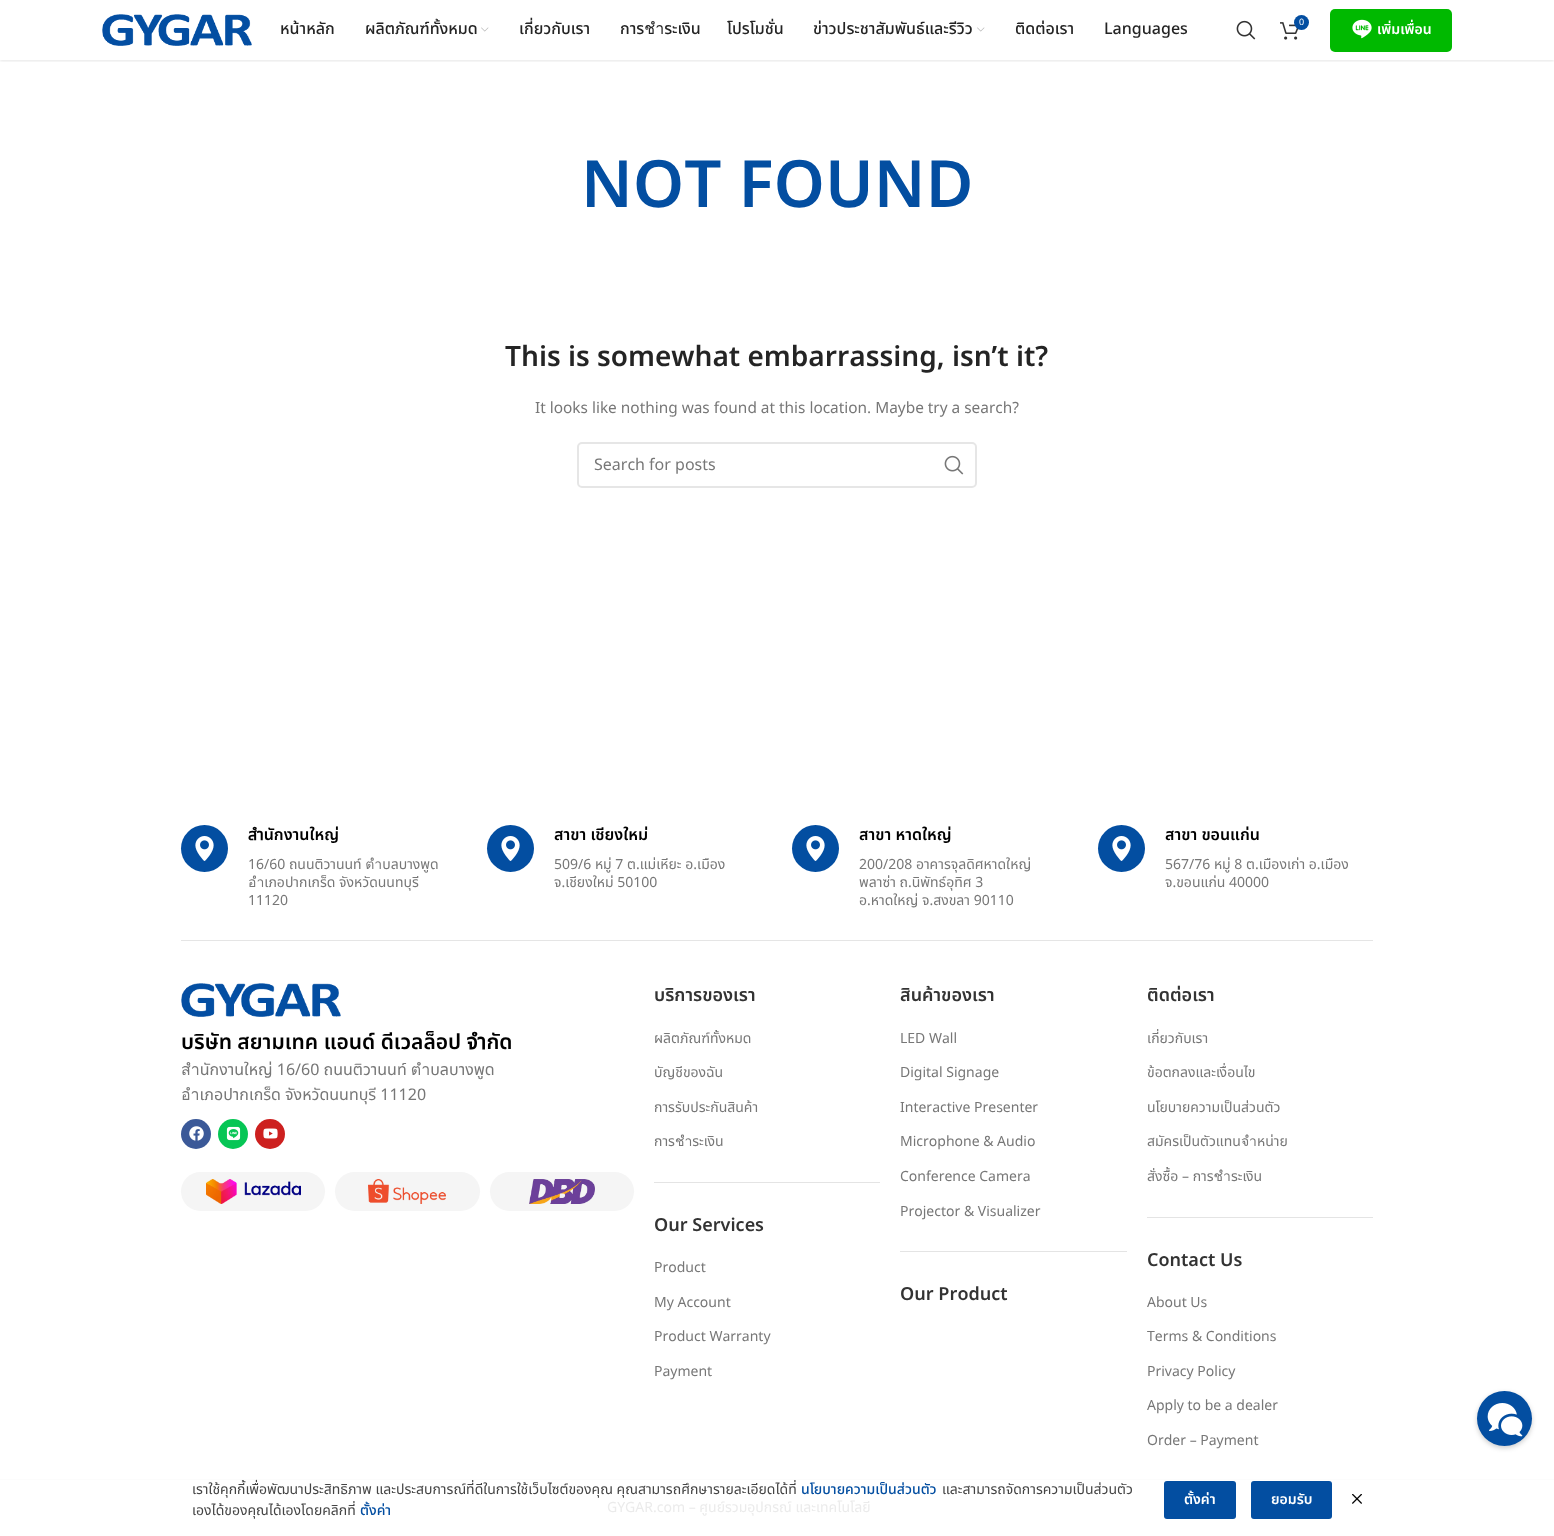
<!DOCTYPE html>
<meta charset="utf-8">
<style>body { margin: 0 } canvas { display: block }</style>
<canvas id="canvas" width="1554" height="1536"></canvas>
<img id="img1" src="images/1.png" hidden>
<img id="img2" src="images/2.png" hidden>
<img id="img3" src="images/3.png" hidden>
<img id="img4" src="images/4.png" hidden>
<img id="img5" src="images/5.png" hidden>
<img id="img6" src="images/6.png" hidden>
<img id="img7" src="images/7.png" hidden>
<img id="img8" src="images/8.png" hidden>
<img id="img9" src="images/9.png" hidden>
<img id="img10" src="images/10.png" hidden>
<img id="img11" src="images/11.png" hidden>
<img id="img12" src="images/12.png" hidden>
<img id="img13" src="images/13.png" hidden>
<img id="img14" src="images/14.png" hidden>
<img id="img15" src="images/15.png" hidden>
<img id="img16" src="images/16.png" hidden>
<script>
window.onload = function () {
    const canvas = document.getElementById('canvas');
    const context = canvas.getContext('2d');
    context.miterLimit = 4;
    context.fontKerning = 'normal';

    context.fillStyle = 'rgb(255, 255, 255)';
    context.fillRect(0, 0, 1554, 1536);
    context.save();
    context.beginPath();
    context.rect(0, 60, 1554, 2);
    context.clip();
    context.fillStyle = 'rgba(0, 0, 0, 0.1)';
    context.filter = 'blur(1.5px)';
    context.beginPath();
    context.rect(0, 1, 1554, 60);
    context.fill();
    context.filter = 'none';
    context.restore();
    context.drawImage(document.getElementById('img1'), 102, 14, 150, 32);
    context.drawImage(document.getElementById('img2'), 481, 27, 8, 5);
    context.drawImage(document.getElementById('img2'), 977, 27, 8, 5);
    context.drawImage(document.getElementById('img3'), 1236, 20, 20, 20);
    context.drawImage(document.getElementById('img4'), 1280, 22, 19, 18);
    context.fillStyle = 'rgb(3, 78, 161)';
    context.beginPath();
    context.arc(1301.5, 22.5, 7.5, 0, 2 * Math.PI);
    context.fill();
    context.fillStyle = 'rgb(0, 185, 0)';
    context.beginPath();
    context.roundRect(1330, 9, 122, 43, 5);
    context.fill();
    context.drawImage(document.getElementById('img5'), 1352, 19, 20, 20);
    context.beginPath();
    context.roundRect(578, 443, 398, 44, 4);
    context.strokeStyle = 'rgb(230, 230, 230)';
    context.lineWidth = 2;
    context.stroke();
    context.drawImage(document.getElementById('img6'), 944, 455, 20, 20);
    context.fillStyle = 'rgb(229, 229, 229)';
    context.fillRect(181, 940, 1192, 1);
    context.fillStyle = 'rgb(3, 78, 161)';
    context.beginPath();
    context.arc(204.5, 848.5, 23.5, 0, 2 * Math.PI);
    context.fill();
    context.drawImage(document.getElementById('img7'), 195, 836, 19, 25);
    context.beginPath();
    context.arc(510.5, 848.5, 23.5, 0, 2 * Math.PI);
    context.fill();
    context.drawImage(document.getElementById('img7'), 501, 836, 19, 25);
    context.beginPath();
    context.arc(815.5, 848.5, 23.5, 0, 2 * Math.PI);
    context.fill();
    context.drawImage(document.getElementById('img7'), 806, 836, 19, 25);
    context.beginPath();
    context.arc(1121.5, 848.5, 23.5, 0, 2 * Math.PI);
    context.fill();
    context.drawImage(document.getElementById('img7'), 1112, 836, 19, 25);
    context.drawImage(document.getElementById('img8'), 181, 983, 160, 34);
    context.fillStyle = 'rgb(59, 89, 152)';
    context.beginPath();
    context.arc(196, 1134, 15, 0, 2 * Math.PI);
    context.fill();
    context.drawImage(document.getElementById('img9'), 189, 1126, 15, 15);
    context.fillStyle = 'rgb(6, 198, 85)';
    context.beginPath();
    context.arc(233, 1134, 15, 0, 2 * Math.PI);
    context.fill();
    context.drawImage(document.getElementById('img10'), 226, 1126, 15, 15);
    context.fillStyle = 'rgb(205, 32, 31)';
    context.beginPath();
    context.arc(270, 1134, 15, 0, 2 * Math.PI);
    context.fill();
    context.drawImage(document.getElementById('img11'), 263, 1128, 15, 11);
    context.fillStyle = 'rgb(245, 245, 245)';
    context.beginPath();
    context.roundRect(181, 1172, 144, 39, 19.5);
    context.fill();
    context.drawImage(document.getElementById('img12'), 206, 1179, 95, 25);
    context.beginPath();
    context.roundRect(335, 1172, 145, 39, 19.5);
    context.fill();
    context.drawImage(document.getElementById('img13'), 368, 1179, 78, 25);
    context.beginPath();
    context.roundRect(490, 1172, 144, 39, 19.5);
    context.fill();
    context.drawImage(document.getElementById('img14'), 529, 1179, 66, 25);
    context.fillStyle = 'rgb(228, 228, 228)';
    context.fillRect(654, 1182, 226, 1);
    context.fillRect(900, 1251, 227, 1);
    context.fillRect(1147, 1217, 226, 1);
    context.fillStyle = 'rgb(252, 252, 252)';
    context.fillRect(0, 1479, 1554, 1);
    context.fillStyle = 'rgba(0, 0, 0, 0.2)';
    context.filter = 'blur(2.5px)';
    context.beginPath();
    context.roundRect(1477, 1393, 55, 55, 27.5);
    context.fill();
    context.filter = 'none';
    context.fillStyle = 'rgb(3, 78, 161)';
    context.beginPath();
    context.arc(1504.5, 1418.5, 27.5, 0, 2 * Math.PI);
    context.fill();
    context.drawImage(document.getElementById('img15'), 1487, 1403, 36, 34);
    context.beginPath();
    context.roundRect(1164, 1481, 72, 38, 3);
    context.fill();
    context.beginPath();
    context.roundRect(1251, 1481, 81, 38, 3);
    context.fill();
    context.drawImage(document.getElementById('img16'), 1352, 1494, 10, 10);
    context.font = '500 16px Noto Sans Thai';
    context.fillStyle = 'rgb(36, 36, 36)';
    context.fillText('หน้าหลัก', 280, 34);
    context.fillText('ผลิตภัณฑ์ทั้งหมด', 365, 34);
    context.fillText('เกี่ยวกับเรา', 519, 34);
    context.fillText('การชำระเงิน', 620, 34);
    context.fillText('โปรโมชั่น', 727, 34);
    context.fillText('ข่าวประชาสัมพันธ์และรีวิว', 813, 34);
    context.fillText('ติดต่อเรา', 1015, 34);
    context.fillText('Languages', 1104, 34);
    context.font = '9px Noto Sans Thai';
    context.fillStyle = 'rgb(255, 255, 255)';
    context.fillText('0', 1299, 25);
    context.font = '600 14px Noto Sans Thai';
    context.fillText('เพิ่มเพื่อน', 1377, 34);
    context.font = '600 65.25px Noto Sans Thai';
    context.fillStyle = 'rgb(3, 78, 161)';
    context.fillText('NOT FOUND', 581, 207);
    context.font = '600 28px Noto Sans Thai';
    context.fillStyle = 'rgb(36, 36, 36)';
    context.fillText('This is somewhat embarrassing, isn’t it?', 505, 366);
    context.font = '15.4px Noto Sans Thai';
    context.fillStyle = 'rgb(119, 119, 119)';
    context.fillText('It looks like nothing was found at this location. Maybe try a search?', 535, 413);
    context.font = '16px Noto Sans Thai';
    context.fillText('Search for posts', 594, 470);
    context.font = '600 16px Noto Sans Thai';
    context.fillStyle = 'rgb(0, 0, 0)';
    context.fillText('สำนักงานใหญ่', 248, 840);
    context.font = '14px Noto Sans Thai';
    context.fillStyle = 'rgb(119, 119, 119)';
    context.fillText('16/60 ถนนติวานนท์ ตำบลบางพูด', 248, 869);
    context.fillText('อำเภอปากเกร็ด จังหวัดนนทบุรี', 248, 887);
    context.fillText('11120', 248, 905);
    context.font = '600 16px Noto Sans Thai';
    context.fillStyle = 'rgb(0, 0, 0)';
    context.fillText('สาขา เชียงใหม่', 554, 840);
    context.font = '14px Noto Sans Thai';
    context.fillStyle = 'rgb(119, 119, 119)';
    context.fillText('509/6 หมู่ 7 ต.แม่เหียะ อ.เมือง', 554, 869);
    context.fillText('จ.เชียงใหม่ 50100', 554, 887);
    context.font = '600 16px Noto Sans Thai';
    context.fillStyle = 'rgb(0, 0, 0)';
    context.fillText('สาขา หาดใหญ่', 859, 840);
    context.font = '14px Noto Sans Thai';
    context.fillStyle = 'rgb(119, 119, 119)';
    context.fillText('200/208 อาคารจุลดิศหาดใหญ่', 859, 869);
    context.fillText('พลาซ่า ถ.นิพัทธ์อุทิศ 3', 859, 887);
    context.fillText('อ.หาดใหญ่ จ.สงขลา 90110', 859, 905);
    context.font = '600 16px Noto Sans Thai';
    context.fillStyle = 'rgb(0, 0, 0)';
    context.fillText('สาขา ขอนแก่น', 1165, 840);
    context.font = '14px Noto Sans Thai';
    context.fillStyle = 'rgb(119, 119, 119)';
    context.fillText('567/76 หมู่ 8 ต.เมืองเก่า อ.เมือง', 1165, 869);
    context.fillText('จ.ขอนแก่น 40000', 1165, 887);
    context.font = '600 21px Noto Sans Thai';
    context.fillStyle = 'rgb(0, 0, 0)';
    context.fillText('บริษัท สยามเทค แอนด์ ดีเวลล็อป จำกัด', 181, 1049);
    context.font = '16px Noto Sans Thai';
    context.fillStyle = 'rgb(119, 119, 119)';
    context.fillText('สำนักงานใหญ่ 16/60 ถนนติวานนท์ ตำบลบางพูด', 181, 1075);
    context.fillText('อำเภอปากเกร็ด จังหวัดนนทบุรี 11120', 181, 1100);
    context.font = '600 18px Noto Sans Thai';
    context.fillStyle = 'rgb(51, 51, 51)';
    context.fillText('บริการของเรา', 654, 1001);
    context.font = '14px Noto Sans Thai';
    context.fillStyle = 'rgb(119, 119, 119)';
    context.fillText('ผลิตภัณฑ์ทั้งหมด', 654, 1043);
    context.fillText('บัญชีของฉัน', 654, 1077);
    context.fillText('การรับประกันสินค้า', 654, 1112);
    context.fillText('การชำระเงิน', 654, 1146);
    context.font = '600 18px Noto Sans Thai';
    context.fillStyle = 'rgb(51, 51, 51)';
    context.fillText('Our Services', 654, 1231);
    context.font = '14px Noto Sans Thai';
    context.fillStyle = 'rgb(119, 119, 119)';
    context.fillText('Product', 654, 1272);
    context.fillText('My Account', 654, 1307);
    context.fillText('Product Warranty', 654, 1341);
    context.fillText('Payment', 654, 1376);
    context.font = '600 18px Noto Sans Thai';
    context.fillStyle = 'rgb(51, 51, 51)';
    context.fillText('สินค้าของเรา', 900, 1001);
    context.font = '14px Noto Sans Thai';
    context.fillStyle = 'rgb(119, 119, 119)';
    context.fillText('LED Wall', 900, 1043);
    context.fillText('Digital Signage', 900, 1077);
    context.fillText('Interactive Presenter', 900, 1112);
    context.fillText('Microphone & Audio', 900, 1146);
    context.fillText('Conference Camera', 900, 1181);
    context.fillText('Projector & Visualizer', 900, 1216);
    context.font = '600 18px Noto Sans Thai';
    context.fillStyle = 'rgb(51, 51, 51)';
    context.fillText('Our Product', 900, 1300);
    context.fillText('ติดต่อเรา', 1147, 1001);
    context.font = '14px Noto Sans Thai';
    context.fillStyle = 'rgb(119, 119, 119)';
    context.fillText('เกี่ยวกับเรา', 1147, 1043);
    context.fillText('ข้อตกลงและเงื่อนไข', 1147, 1077);
    context.fillText('นโยบายความเป็นส่วนตัว', 1147, 1112);
    context.fillText('สมัครเป็นตัวแทนจำหน่าย', 1147, 1146);
    context.fillText('สั่งซื้อ – การชำระเงิน', 1147, 1181);
    context.font = '600 18px Noto Sans Thai';
    context.fillStyle = 'rgb(51, 51, 51)';
    context.fillText('Contact Us', 1147, 1266);
    context.font = '14px Noto Sans Thai';
    context.fillStyle = 'rgb(119, 119, 119)';
    context.fillText('About Us', 1147, 1307);
    context.fillText('Terms & Conditions', 1147, 1341);
    context.fillText('Privacy Policy', 1147, 1376);
    context.fillText('Apply to be a dealer', 1147, 1410);
    context.fillText('Order – Payment', 1147, 1445);
    context.fillStyle = 'rgb(235, 235, 235)';
    context.fillText('GYGAR.com – ศูนย์รวมอุปกรณ์ และเทคโนโลยี', 607, 1512);
    context.fillStyle = 'rgb(68, 68, 68)';
    context.fillText('เราใช้คุกกี้เพื่อพัฒนาประสิทธิภาพ และประสบการณ์ที่ดีในการใช้เว็บไซต์ของคุณ คุณสามารถศึกษารายละเอียดได้ที่', 192, 1494);
    context.font = '500 14px Noto Sans Thai';
    context.fillStyle = 'rgb(3, 78, 161)';
    context.fillText('นโยบายความเป็นส่วนตัว', 801, 1494);
    context.font = '14px Noto Sans Thai';
    context.fillStyle = 'rgb(68, 68, 68)';
    context.fillText('และสามารถจัดการความเป็นส่วนตัว', 942, 1494);
    context.fillText('เองได้ของคุณได้เองโดยคลิกที่', 192, 1515);
    context.font = '500 14px Noto Sans Thai';
    context.fillStyle = 'rgb(3, 78, 161)';
    context.fillText('ตั้งค่า', 360, 1515);
    context.font = '600 14px Noto Sans Thai';
    context.fillStyle = 'rgb(255, 255, 255)';
    context.fillText('ตั้งค่า', 1184, 1504);
    context.fillText('ยอมรับ', 1271, 1504);
};
</script>
